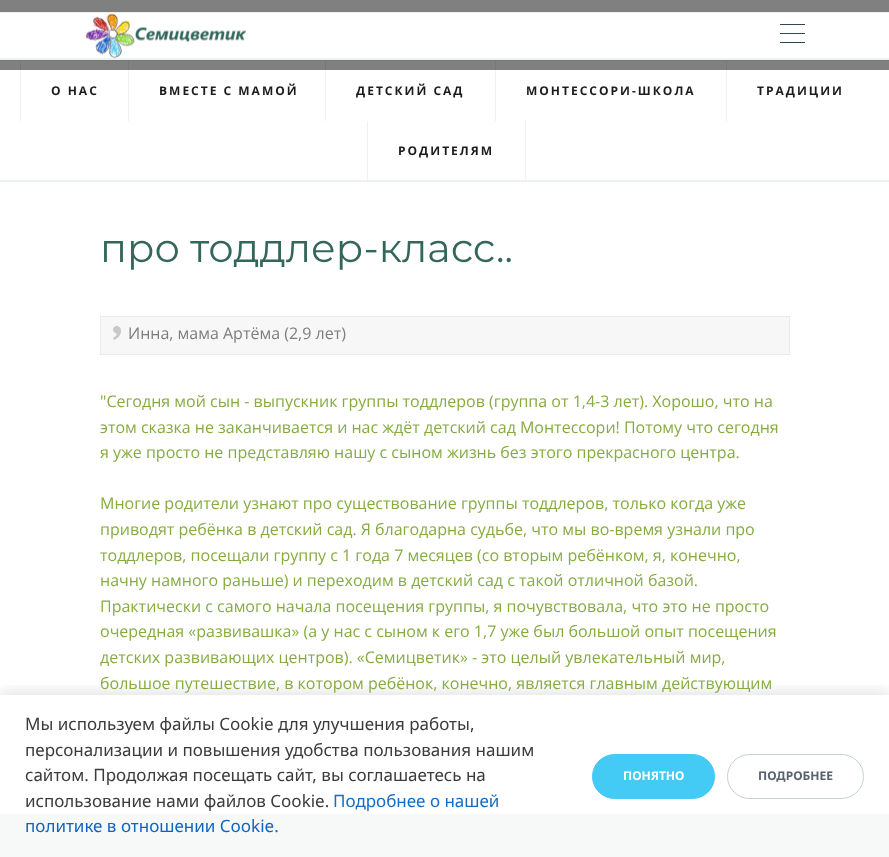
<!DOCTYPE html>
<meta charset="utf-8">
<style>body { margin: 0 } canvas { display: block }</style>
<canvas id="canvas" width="889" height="857"></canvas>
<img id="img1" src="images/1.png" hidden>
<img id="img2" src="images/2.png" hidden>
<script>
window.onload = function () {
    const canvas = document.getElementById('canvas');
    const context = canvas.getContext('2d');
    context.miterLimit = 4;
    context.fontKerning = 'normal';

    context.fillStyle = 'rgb(255, 255, 255)';
    context.fillRect(0, 0, 889, 857);
    context.fillStyle = 'rgb(128, 128, 128)';
    context.fillRect(0, 0, 889, 70);
    context.fillStyle = 'rgb(236, 241, 242)';
    context.fillRect(0, 58, 889, 2);
    context.fillStyle = 'rgb(255, 255, 255)';
    context.fillRect(0, 13, 889, 45);
    context.fillStyle = 'rgb(236, 241, 242)';
    context.fillRect(0, 12, 889, 1);
    context.drawImage(document.getElementById('img1'), 85, 13, 161, 45);
    context.fillStyle = 'rgb(50, 72, 81)';
    context.fillRect(780, 24, 25, 1);
    context.fillRect(780, 33, 25, 1);
    context.fillRect(780, 42, 25, 1);
    context.fillStyle = 'rgb(236, 241, 242)';
    context.fillRect(0, 180, 889, 2);
    context.fillStyle = 'rgb(118, 121, 121)';
    context.fillRect(0, 60, 889, 1);
    context.fillStyle = 'rgb(236, 241, 242)';
    context.fillRect(20, 70, 1, 51);
    context.fillStyle = 'rgb(118, 121, 121)';
    context.fillRect(20, 61, 1, 9);
    context.fillStyle = 'rgb(236, 241, 242)';
    context.fillRect(128, 70, 1, 51);
    context.fillStyle = 'rgb(118, 121, 121)';
    context.fillRect(128, 61, 1, 9);
    context.fillStyle = 'rgb(236, 241, 242)';
    context.fillRect(325, 70, 1, 51);
    context.fillStyle = 'rgb(118, 121, 121)';
    context.fillRect(325, 61, 1, 9);
    context.fillStyle = 'rgb(236, 241, 242)';
    context.fillRect(495, 70, 1, 51);
    context.fillStyle = 'rgb(118, 121, 121)';
    context.fillRect(495, 61, 1, 9);
    context.fillStyle = 'rgb(236, 241, 242)';
    context.fillRect(726, 70, 1, 51);
    context.fillStyle = 'rgb(118, 121, 121)';
    context.fillRect(726, 61, 1, 9);
    context.fillStyle = 'rgb(236, 241, 242)';
    context.fillRect(525, 121, 1, 59);
    context.fillRect(367, 121, 1, 59);
    context.fillStyle = 'rgb(247, 247, 247)';
    context.fillRect(101, 317, 688, 37);
    context.fillStyle = 'rgb(235, 235, 235)';
    context.fillRect(100, 316, 1, 39);
    context.fillRect(100, 354, 690, 1);
    context.fillStyle = 'rgb(223, 223, 223)';
    context.fillRect(100, 354, 1, 1);
    context.fillStyle = 'rgb(235, 235, 235)';
    context.fillRect(789, 316, 1, 39);
    context.fillStyle = 'rgb(223, 223, 223)';
    context.fillRect(789, 354, 1, 1);
    context.drawImage(document.getElementById('img2'), 113, 326, 8, 14);
    context.fillStyle = 'rgb(235, 235, 235)';
    context.fillRect(100, 316, 690, 1);
    context.fillStyle = 'rgb(223, 223, 223)';
    context.fillRect(100, 316, 1, 1);
    context.fillRect(789, 316, 1, 1);
    context.fillStyle = 'rgb(247, 248, 248)';
    context.fillRect(0, 814, 889, 43);
    context.save();
    context.beginPath();
    context.rect(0, 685, 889, 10);
    context.clip();
    context.fillStyle = 'rgba(0, 0, 0, 0.1)';
    context.filter = 'blur(7px)';
    context.beginPath();
    context.rect(0, 691, 889, 162);
    context.fill();
    context.filter = 'none';
    context.restore();
    context.fillStyle = 'rgb(67, 202, 245)';
    context.beginPath();
    context.roundRect(592.5, 754.5, 122, 44, 22);
    context.fill();
    context.strokeStyle = 'rgb(67, 202, 245)';
    context.stroke();
    context.beginPath();
    context.roundRect(727.5, 754.5, 136, 44, 22);
    context.strokeStyle = 'rgb(200, 207, 213)';
    context.stroke();
    context.letterSpacing = '2px';
    context.font = 'bold 12px Open Sans';
    context.fillStyle = 'rgb(28, 28, 28)';
    context.fillText('О НАС', 51, 95);
    context.fillText('ВМЕСТЕ С МАМОЙ', 159, 95);
    context.fillText('ДЕТСКИЙ САД', 356, 95);
    context.fillText('МОНТЕССОРИ-ШКОЛА', 526, 95);
    context.fillText('ТРАДИЦИИ', 757, 95);
    context.fillText('РОДИТЕЛЯМ', 398, 155);
    context.letterSpacing = '0px';
    context.font = '40px Montserrat';
    context.fillStyle = 'rgb(52, 103, 92)';
    context.fillText('про тоддлер-класс..', 100, 262);
    context.font = '16px Open Sans';
    context.fillStyle = 'rgb(125, 125, 125)';
    context.fillText('Инна, мама Артёма (2,9 лет)', 128, 339);
    context.fillStyle = 'rgb(134, 172, 65)';
    context.fillText('"Сегодня мой сын - выпускник группы тоддлеров (группа от 1,4-3 лет). Хорошо, что на', 100, 407);
    context.fillText('этом сказка не заканчивается и нас ждёт детский сад Монтессори! Потому что сегодня', 100, 433);
    context.fillText('я уже просто не представляю нашу с сыном жизнь без этого прекрасного центра.', 100, 458);
    context.fillText('Многие родители узнают про существование группы тоддлеров, только когда уже', 100, 509);
    context.fillText('приводят ребёнка в детский сад. Я благодарна судьбе, что мы во-время узнали про', 100, 535);
    context.fillText('тоддлеров, посещали группу с 1 года 7 месяцев (со вторым ребёнком, я, конечно,', 100, 561);
    context.fillText('начну намного раньше) и переходим в детский сад с такой отличной базой.', 100, 586);
    context.fillText('Практически с самого начала посещения группы, я почувствовала, что это не просто', 100, 612);
    context.fillText('очередная «развивашка» (а у нас с сыном к его 1,7 уже был большой опыт посещения', 100, 637);
    context.fillText('детских развивающих центров). «Семицветик» - это целый увлекательный мир,', 100, 663);
    context.fillText('большое путешествие, в котором ребёнок, конечно, является главным действующим', 100, 689);
    context.font = '17px Noto Sans';
    context.fillStyle = 'rgb(59, 59, 59)';
    context.fillText('Мы используем файлы Cookie для улучшения работы,', 25, 730);
    context.fillText('персонализации и повышения удобства пользования нашим', 25, 756);
    context.fillText('сайтом. Продолжая посещать сайт, вы соглашаетесь на', 25, 781);
    context.fillText('использование нами файлов Cookie.', 25, 807);
    context.fillStyle = 'rgb(21, 108, 197)';
    context.fillText('Подробнее о нашей', 333, 807);
    context.fillStyle = 'rgb(13, 101, 190)';
    context.fillText('политике в отношении Cookie.', 25, 832);
    context.font = 'bold 12px Noto Sans';
    context.fillStyle = 'rgb(255, 255, 255)';
    context.fillText('ПОНЯТНО', 623, 780);
    context.fillStyle = 'rgb(89, 99, 111)';
    context.fillText('ПОДРОБНЕЕ', 758, 780);
};
</script>
